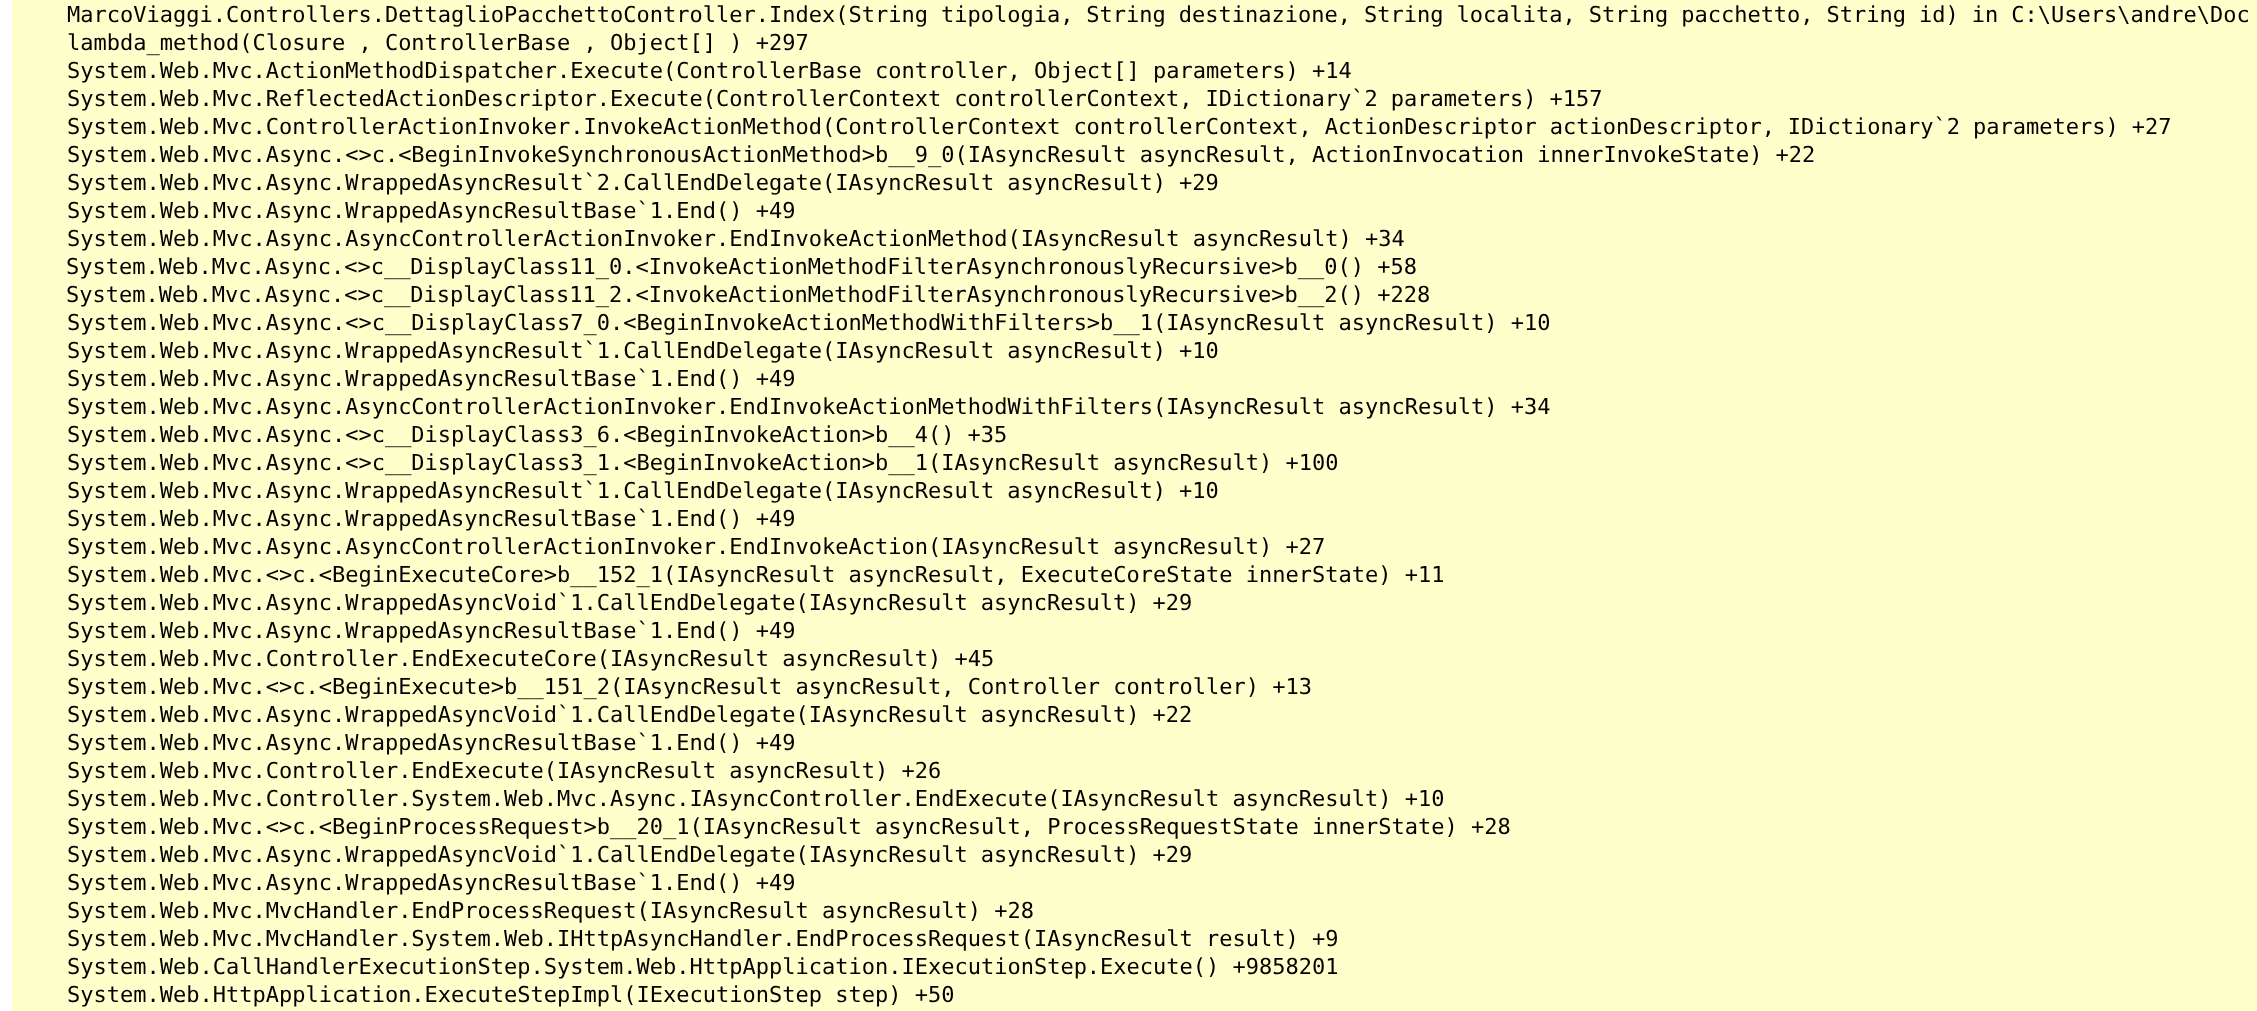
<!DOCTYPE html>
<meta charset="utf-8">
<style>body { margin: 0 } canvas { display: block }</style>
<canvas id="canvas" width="2257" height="1011"></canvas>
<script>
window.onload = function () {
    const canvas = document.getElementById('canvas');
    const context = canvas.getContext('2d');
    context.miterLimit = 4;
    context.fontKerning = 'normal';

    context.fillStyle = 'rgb(255, 255, 255)';
    context.fillRect(0, 0, 2257, 1011);
    context.fillStyle = 'rgb(255, 255, 204)';
    context.fillRect(12, 0, 2245, 1011);
    context.wordSpacing = '-0.25px';
    context.font = '22px DejaVu Sans Mono';
    context.fillStyle = 'rgb(0, 0, 0)';
    context.fillText('MarcoViaggi.Controllers.DettaglioPacchettoController.Index(String tipologia, String destinazione, String localita, String pacchetto, String id) in C:\\Users\\andre\\Doc', 67, 22);
    context.wordSpacing = '0px';
    context.fillText('lambda_method(Closure , ControllerBase , Object[] ) +297', 67, 50);
    context.fillText('System.Web.Mvc.ActionMethodDispatcher.Execute(ControllerBase controller, Object[] parameters) +14', 67, 78);
    context.wordSpacing = '-0.25px';
    context.fillText('System.Web.Mvc.ReflectedActionDescriptor.Execute(ControllerContext controllerContext, IDictionary`2 parameters) +157', 67, 106);
    context.fillText('System.Web.Mvc.ControllerActionInvoker.InvokeActionMethod(ControllerContext controllerContext, ActionDescriptor actionDescriptor, IDictionary`2 parameters) +27', 67, 134);
    context.wordSpacing = '0px';
    context.fillText('System.Web.Mvc.Async.<>c.<BeginInvokeSynchronousActionMethod>b__9_0(IAsyncResult asyncResult, ActionInvocation innerInvokeState) +22', 67, 162);
    context.wordSpacing = '-0.25px';
    context.fillText('System.Web.Mvc.Async.WrappedAsyncResult`2.CallEndDelegate(IAsyncResult asyncResult) +29', 67, 190);
    context.wordSpacing = '0px';
    context.fillText('System.Web.Mvc.Async.WrappedAsyncResultBase`1.End() +49', 67, 218);
    context.fillText('System.Web.Mvc.Async.AsyncControllerActionInvoker.EndInvokeActionMethod(IAsyncResult asyncResult) +34', 67, 246);
    context.fillText('System.Web.Mvc.Async.<>c__DisplayClass11_0.<InvokeActionMethodFilterAsynchronouslyRecursive>b__0() +58', 66, 274);
    context.fillText('System.Web.Mvc.Async.<>c__DisplayClass11_2.<InvokeActionMethodFilterAsynchronouslyRecursive>b__2() +228', 66, 302);
    context.fillText('System.Web.Mvc.Async.<>c__DisplayClass7_0.<BeginInvokeActionMethodWithFilters>b__1(IAsyncResult asyncResult) +10', 67, 330);
    context.wordSpacing = '-0.25px';
    context.fillText('System.Web.Mvc.Async.WrappedAsyncResult`1.CallEndDelegate(IAsyncResult asyncResult) +10', 67, 358);
    context.wordSpacing = '0px';
    context.fillText('System.Web.Mvc.Async.WrappedAsyncResultBase`1.End() +49', 67, 386);
    context.fillText('System.Web.Mvc.Async.AsyncControllerActionInvoker.EndInvokeActionMethodWithFilters(IAsyncResult asyncResult) +34', 67, 414);
    context.wordSpacing = '-0.25px';
    context.fillText('System.Web.Mvc.Async.<>c__DisplayClass3_6.<BeginInvokeAction>b__4() +35', 67, 442);
    context.wordSpacing = '0px';
    context.fillText('System.Web.Mvc.Async.<>c__DisplayClass3_1.<BeginInvokeAction>b__1(IAsyncResult asyncResult) +100', 67, 470);
    context.wordSpacing = '-0.25px';
    context.fillText('System.Web.Mvc.Async.WrappedAsyncResult`1.CallEndDelegate(IAsyncResult asyncResult) +10', 67, 498);
    context.wordSpacing = '0px';
    context.fillText('System.Web.Mvc.Async.WrappedAsyncResultBase`1.End() +49', 67, 526);
    context.fillText('System.Web.Mvc.Async.AsyncControllerActionInvoker.EndInvokeAction(IAsyncResult asyncResult) +27', 67, 554);
    context.fillText('System.Web.Mvc.<>c.<BeginExecuteCore>b__152_1(IAsyncResult asyncResult, ExecuteCoreState innerState) +11', 67, 582);
    context.wordSpacing = '-0.25px';
    context.fillText('System.Web.Mvc.Async.WrappedAsyncVoid`1.CallEndDelegate(IAsyncResult asyncResult) +29', 67, 610);
    context.wordSpacing = '0px';
    context.fillText('System.Web.Mvc.Async.WrappedAsyncResultBase`1.End() +49', 67, 638);
    context.fillText('System.Web.Mvc.Controller.EndExecuteCore(IAsyncResult asyncResult) +45', 67, 666);
    context.fillText('System.Web.Mvc.<>c.<BeginExecute>b__151_2(IAsyncResult asyncResult, Controller controller) +13', 67, 694);
    context.wordSpacing = '-0.25px';
    context.fillText('System.Web.Mvc.Async.WrappedAsyncVoid`1.CallEndDelegate(IAsyncResult asyncResult) +22', 67, 722);
    context.wordSpacing = '0px';
    context.fillText('System.Web.Mvc.Async.WrappedAsyncResultBase`1.End() +49', 67, 750);
    context.fillText('System.Web.Mvc.Controller.EndExecute(IAsyncResult asyncResult) +26', 67, 778);
    context.fillText('System.Web.Mvc.Controller.System.Web.Mvc.Async.IAsyncController.EndExecute(IAsyncResult asyncResult) +10', 67, 806);
    context.fillText('System.Web.Mvc.<>c.<BeginProcessRequest>b__20_1(IAsyncResult asyncResult, ProcessRequestState innerState) +28', 67, 834);
    context.wordSpacing = '-0.25px';
    context.fillText('System.Web.Mvc.Async.WrappedAsyncVoid`1.CallEndDelegate(IAsyncResult asyncResult) +29', 67, 862);
    context.wordSpacing = '0px';
    context.fillText('System.Web.Mvc.Async.WrappedAsyncResultBase`1.End() +49', 67, 890);
    context.fillText('System.Web.Mvc.MvcHandler.EndProcessRequest(IAsyncResult asyncResult) +28', 67, 918);
    context.fillText('System.Web.Mvc.MvcHandler.System.Web.IHttpAsyncHandler.EndProcessRequest(IAsyncResult result) +9', 67, 946);
    context.fillText('System.Web.CallHandlerExecutionStep.System.Web.HttpApplication.IExecutionStep.Execute() +9858201', 67, 974);
    context.fillText('System.Web.HttpApplication.ExecuteStepImpl(IExecutionStep step) +50', 67, 1002);
};
</script>
